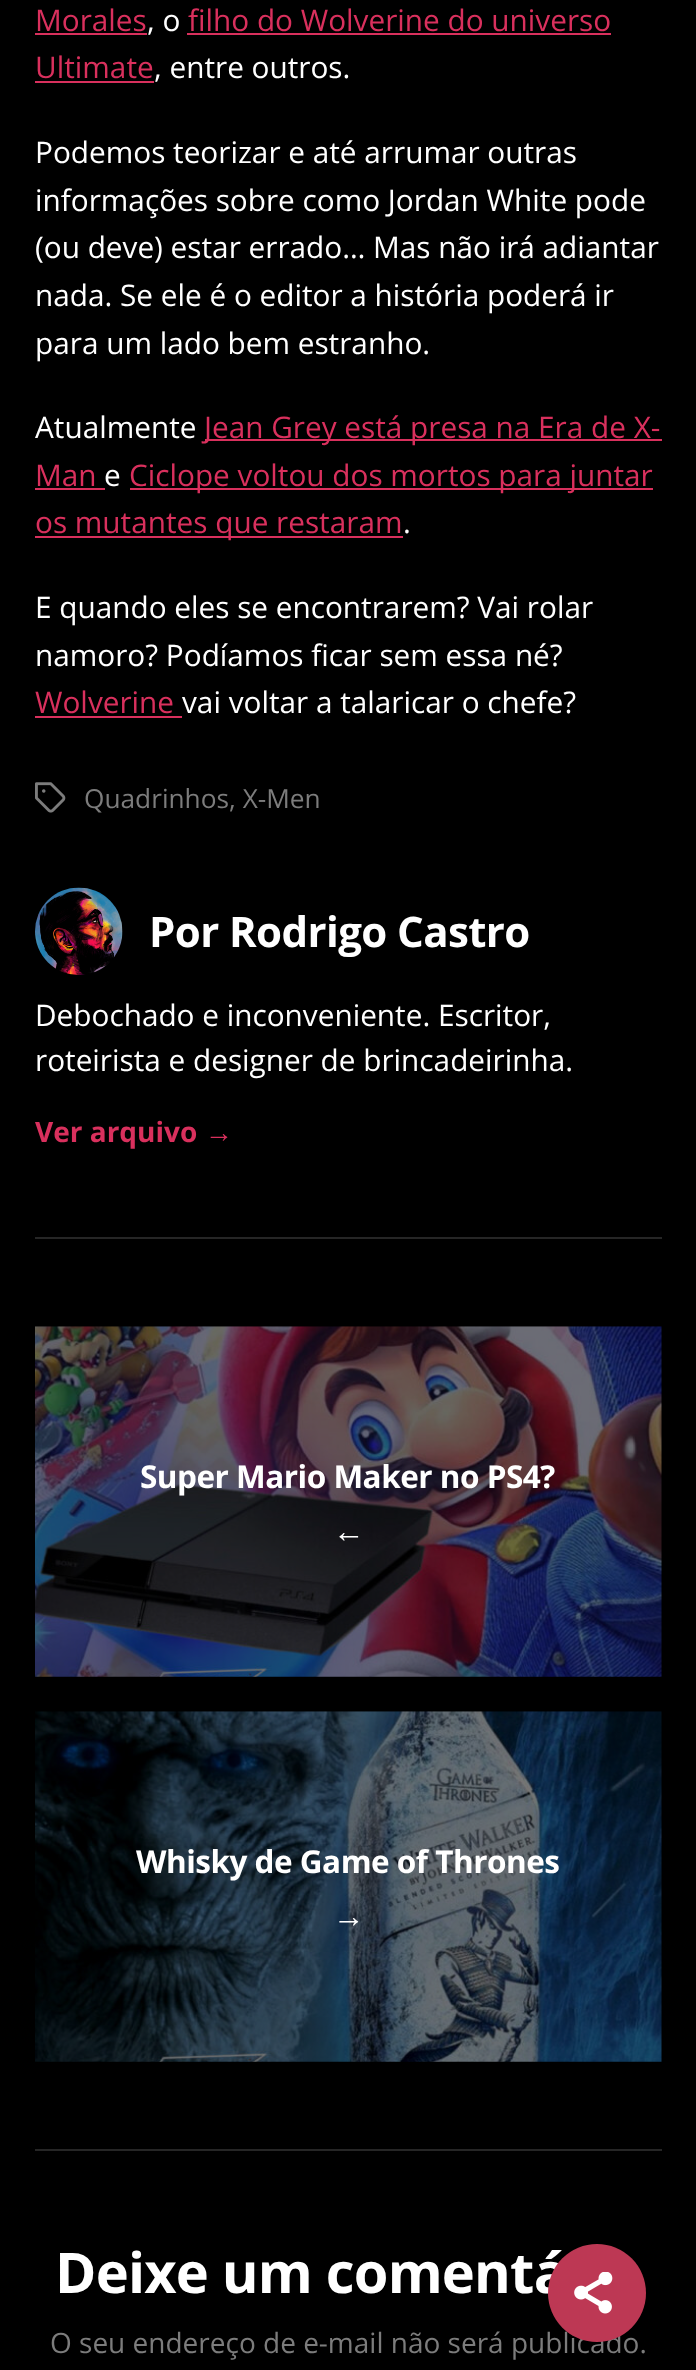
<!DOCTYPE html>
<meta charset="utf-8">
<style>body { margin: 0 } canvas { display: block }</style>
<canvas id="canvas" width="696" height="2370"></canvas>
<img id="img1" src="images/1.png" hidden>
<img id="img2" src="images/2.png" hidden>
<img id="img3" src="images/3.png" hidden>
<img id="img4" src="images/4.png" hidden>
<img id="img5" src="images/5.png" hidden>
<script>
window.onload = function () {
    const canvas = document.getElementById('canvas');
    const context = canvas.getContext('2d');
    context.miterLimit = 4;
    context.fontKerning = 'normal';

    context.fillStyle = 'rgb(0, 0, 0)';
    context.fillRect(0, 0, 696, 2370);
    context.fillStyle = 'rgb(217, 48, 93)';
    context.fillRect(35, 33, 112, 2);
    context.fillRect(187, 33, 424, 2);
    context.fillRect(35, 81, 119, 2);
    context.fillRect(205, 439, 457, 2);
    context.fillRect(35, 488, 70, 2);
    context.fillRect(130, 488, 523, 2);
    context.fillRect(35, 536, 368, 2);
    context.fillRect(35, 716, 147, 2);
    context.drawImage(document.getElementById('img1'), 35, 782, 31, 31);
    context.drawImage(document.getElementById('img2'), 35, 887, 88, 88);
    context.fillStyle = 'rgb(38, 38, 38)';
    context.fillRect(35, 1237, 627, 2);
    context.drawImage(document.getElementById('img3'), 35, 1326, 627, 351);
    context.drawImage(document.getElementById('img4'), 35, 1711, 627, 351);
    context.fillRect(35, 2149, 627, 2);
    context.fillStyle = 'rgba(0, 0, 0, 0.12)';
    context.filter = 'blur(9px)';
    context.beginPath();
    context.roundRect(548, 2245, 98, 98, 49);
    context.fill();
    context.filter = 'none';
    context.fillStyle = 'rgba(0, 0, 0, 0.14)';
    context.filter = 'blur(4.5px)';
    context.beginPath();
    context.roundRect(548, 2251, 98, 98, 49);
    context.fill();
    context.filter = 'none';
    context.fillStyle = 'rgba(0, 0, 0, 0.2)';
    context.filter = 'blur(3.5px)';
    context.beginPath();
    context.roundRect(550, 2249, 94, 94, 47);
    context.fill();
    context.filter = 'none';
    context.font = '29.75px Open Sans';
    context.fillStyle = 'rgb(217, 48, 93)';
    context.fillText('Morales', 35, 31);
    context.fillStyle = 'rgb(255, 255, 255)';
    context.fillText(', o', 147, 31);
    context.fillStyle = 'rgb(217, 48, 93)';
    context.fillText('filho do Wolverine do universo', 188, 31);
    context.fillText('Ultimate', 35, 78);
    context.fillStyle = 'rgb(255, 255, 255)';
    context.fillText(', entre outros.', 154, 78);
    context.fillText('Podemos teorizar e até arrumar outras', 35, 163);
    context.fillText('informações sobre como Jordan White pode', 35, 211);
    context.fillText('(ou deve) estar errado… Mas não irá adiantar', 35, 258);
    context.fillText('nada. Se ele é o editor a história poderá ir', 35, 306);
    context.fillText('para um lado bem estranho.', 35, 354);
    context.fillText('Atualmente', 35, 438);
    context.fillStyle = 'rgb(217, 48, 93)';
    context.fillText('Jean Grey está presa na Era de X-', 204, 438);
    context.fillText('Man', 35, 486);
    context.fillStyle = 'rgb(255, 255, 255)';
    context.fillText('e', 104, 486);
    context.fillStyle = 'rgb(217, 48, 93)';
    context.fillText('Ciclope voltou dos mortos para juntar', 129, 486);
    context.fillText('os mutantes que restaram', 35, 533);
    context.fillStyle = 'rgb(255, 255, 255)';
    context.fillText('.', 403, 533);
    context.fillText('E quando eles se encontrarem? Vai rolar', 35, 618);
    context.fillText('namoro? Podíamos ficar sem essa né?', 35, 666);
    context.fillStyle = 'rgb(217, 48, 93)';
    context.fillText('Wolverine', 35, 713);
    context.fillStyle = 'rgb(255, 255, 255)';
    context.fillText('vai voltar a talaricar o chefe?', 182, 713);
    context.font = '26.25px Open Sans';
    context.fillStyle = 'rgb(124, 124, 124)';
    context.fillText('Quadrinhos, X-Men', 84, 808);
    context.letterSpacing = '-0.6px';
    context.font = 'bold 42px Open Sans';
    context.fillStyle = 'rgb(255, 255, 255)';
    context.fillText('Por Rodrigo Castro', 149, 947);
    context.letterSpacing = '0px';
    context.font = '29.75px Open Sans';
    context.fillText('Debochado e inconveniente. Escritor,', 35, 1026);
    context.fillText('roteirista e designer de brincadeirinha.', 35, 1071);
    context.font = 'bold 28px Open Sans';
    context.fillStyle = 'rgb(217, 48, 93)';
    context.fillText('Ver arquivo', 35, 1142);
    context.font = 'bold 28px Liberation Sans';
    context.fillText('→', 205, 1142);
    context.letterSpacing = '-0.5px';
    context.font = 'bold 31.5px Open Sans';
    context.fillStyle = 'rgb(255, 255, 255)';
    context.fillText('Super Mario Maker no PS4?', 140, 1488);
    context.font = 'bold 31.5px Liberation Sans';
    context.fillText('←', 333, 1542);
    context.font = 'bold 31.5px Open Sans';
    context.fillText('Whisky de Game of Thrones', 136, 1873);
    context.font = 'bold 31.5px Liberation Sans';
    context.fillText('→', 333, 1927);
    context.letterSpacing = '-0.8px';
    context.font = 'bold 56px Open Sans';
    context.fillText('Deixe um comentá', 55, 2293);
    context.letterSpacing = '0px';
    context.font = '28px Open Sans';
    context.fillStyle = 'rgb(124, 124, 124)';
    context.fillText('O seu endereço de e-mail não será publicado.', 50, 2353);
    context.fillStyle = 'rgb(189, 56, 84)';
    context.beginPath();
    context.arc(597, 2293, 49, 0, 2 * Math.PI);
    context.fill();
    context.drawImage(document.getElementById('img5'), 574, 2272, 39, 42);
};
</script>
